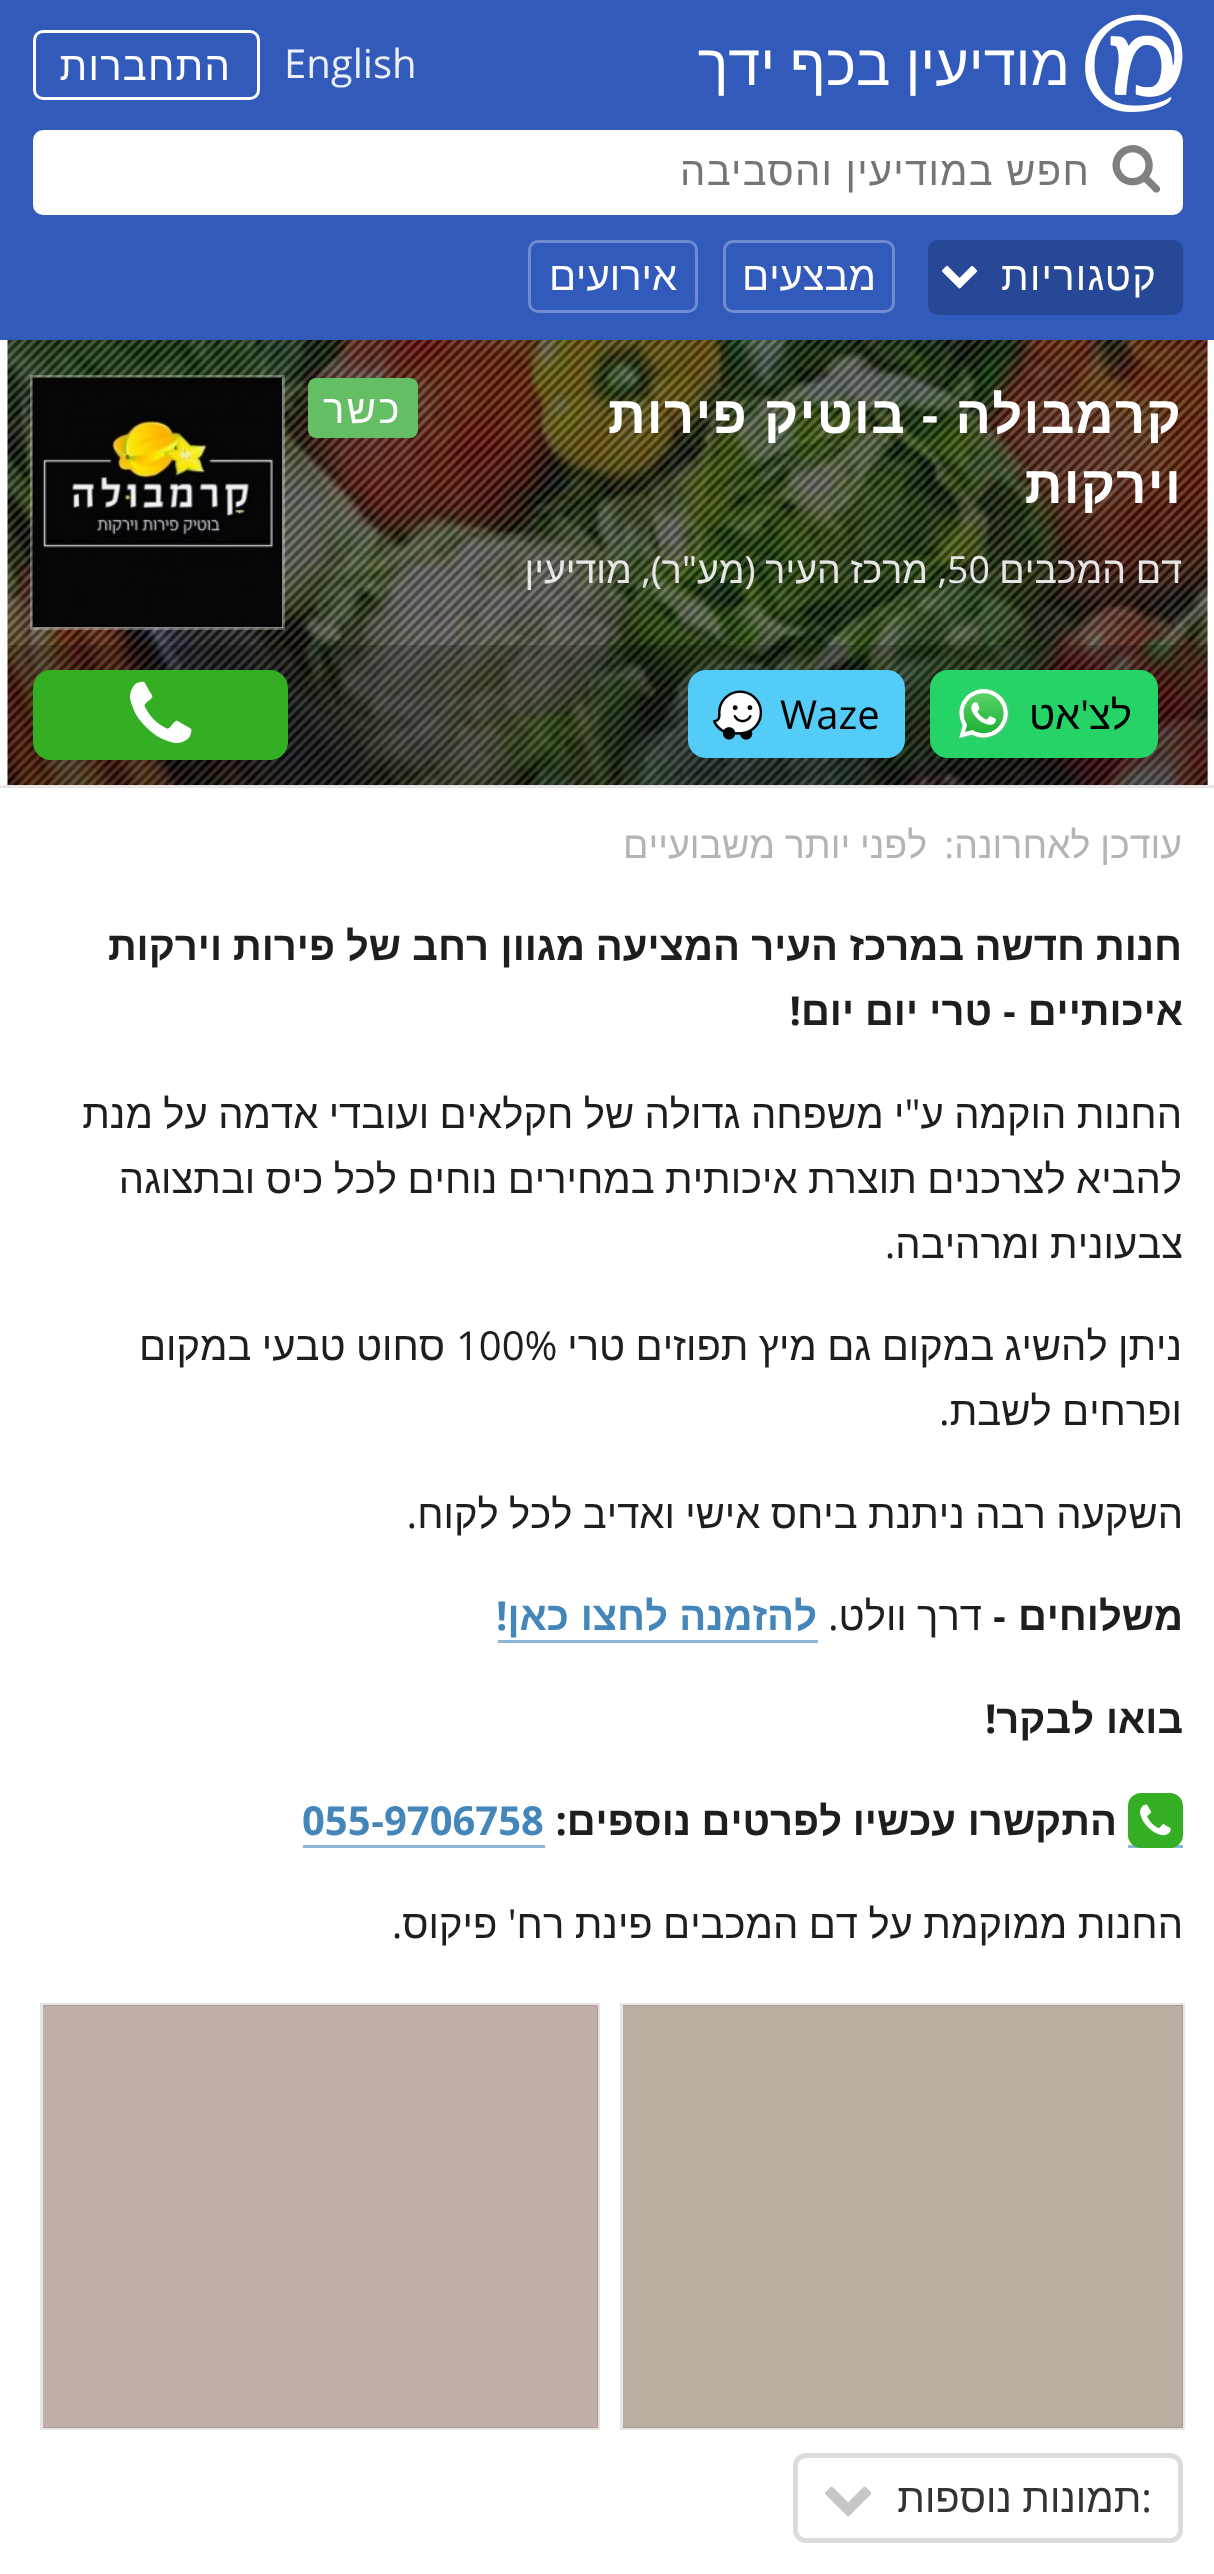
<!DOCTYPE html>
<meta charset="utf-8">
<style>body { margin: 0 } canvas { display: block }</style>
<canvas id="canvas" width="1214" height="2574"></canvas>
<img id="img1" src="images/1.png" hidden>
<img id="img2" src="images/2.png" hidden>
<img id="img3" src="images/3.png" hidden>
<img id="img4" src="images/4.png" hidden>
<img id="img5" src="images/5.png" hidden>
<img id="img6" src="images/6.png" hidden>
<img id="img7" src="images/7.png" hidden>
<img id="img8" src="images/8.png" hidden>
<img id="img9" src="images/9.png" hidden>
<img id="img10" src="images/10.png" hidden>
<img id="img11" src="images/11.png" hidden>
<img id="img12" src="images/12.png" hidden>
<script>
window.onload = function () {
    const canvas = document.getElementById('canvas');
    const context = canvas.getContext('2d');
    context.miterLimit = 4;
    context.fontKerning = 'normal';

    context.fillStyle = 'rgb(255, 255, 255)';
    context.fillRect(0, 0, 1214, 2574);
    context.fillStyle = 'rgb(49, 90, 187)';
    context.fillRect(0, 0, 1214, 340);
    context.drawImage(document.getElementById('img1'), 1085, 14, 98, 98);
    context.beginPath();
    context.roundRect(34.5, 31.5, 224, 67, 8.5);
    context.strokeStyle = 'rgb(255, 255, 255)';
    context.lineWidth = 3;
    context.stroke();
    context.fillStyle = 'rgb(255, 255, 255)';
    context.beginPath();
    context.roundRect(33, 130, 1150, 85, 10);
    context.fill();
    context.drawImage(document.getElementById('img2'), 1112, 145, 49, 48);
    context.fillStyle = 'rgb(39, 72, 150)';
    context.beginPath();
    context.roundRect(928, 240, 255, 75, 10);
    context.fill();
    context.drawImage(document.getElementById('img3'), 942, 265, 36, 24);
    context.beginPath();
    context.roundRect(724.5, 241.5, 169, 70, 8.5);
    context.strokeStyle = 'rgb(111, 140, 207)';
    context.stroke();
    context.beginPath();
    context.roundRect(529.5, 241.5, 167, 70, 8.5);
    context.stroke();
    context.fillStyle = 'rgb(230, 230, 230)';
    context.fillRect(0, 785, 1214, 3);
    context.fillStyle = 'rgb(239, 239, 239)';
    context.fillRect(1207, 340, 1, 445);
    context.drawImage(document.getElementById('img4'), 7, 340, 1201, 445);
    context.drawImage(document.getElementById('img5'), 7, 340, 1201, 445);
    context.fillStyle = 'rgb(100, 190, 100)';
    context.beginPath();
    context.roundRect(308, 378, 110, 60, 8);
    context.fill();
    context.strokeStyle = 'rgba(255, 255, 255, 0.3)';
    context.strokeRect(31.5, 376.5, 252, 252);
    context.fillStyle = 'rgb(239, 239, 239)';
    context.fillRect(33, 378, 250, 250);
    context.drawImage(document.getElementById('img6'), 32, 377, 251, 251);
    context.drawImage(document.getElementById('img7'), 32, 377, 251, 251);
    context.fillStyle = 'rgba(0, 0, 0, 0.2)';
    context.fillRect(8, 645, 1200, 140);
    context.fillStyle = 'rgb(37, 211, 102)';
    context.beginPath();
    context.roundRect(930, 670, 228, 88, 18);
    context.fill();
    context.drawImage(document.getElementById('img8'), 958, 687, 52, 53);
    context.fillStyle = 'rgb(83, 205, 248)';
    context.beginPath();
    context.roundRect(688, 670, 217, 88, 18);
    context.fill();
    context.drawImage(document.getElementById('img9'), 713, 690, 50, 50);
    context.fillStyle = 'rgb(52, 175, 35)';
    context.beginPath();
    context.roundRect(33, 670, 255, 90, 18);
    context.fill();
    context.drawImage(document.getElementById('img10'), 130, 681, 62, 63);
    context.fillStyle = 'rgb(142, 182, 214)';
    context.fillRect(498, 1640, 320, 3);
    context.fillRect(1128, 1845, 55, 3);
    context.fillStyle = 'rgb(52, 175, 35)';
    context.beginPath();
    context.roundRect(1128, 1793, 55, 55, 13);
    context.fill();
    context.drawImage(document.getElementById('img11'), 1140, 1804, 31, 32);
    context.fillStyle = 'rgb(142, 182, 214)';
    context.fillRect(303, 1845, 242, 3);
    context.fillStyle = 'rgb(184, 174, 161)';
    context.fillRect(623, 2005, 560, 423);
    context.strokeStyle = 'rgba(0, 0, 0, 0.1)';
    context.strokeRect(621.5, 2004.5, 562, 424);
    context.fillStyle = 'rgb(192, 176, 169)';
    context.fillRect(43, 2005, 555, 423);
    context.strokeRect(41.5, 2004.5, 557, 424);
    context.beginPath();
    context.roundRect(795.5, 2455.5, 385, 85, 10.5);
    context.strokeStyle = 'rgb(220, 220, 220)';
    context.lineWidth = 5;
    context.stroke();
    context.drawImage(document.getElementById('img12'), 825, 2486, 47, 31);
    context.direction = 'rtl';
    context.font = '57.5px Arimo';
    context.fillStyle = 'rgb(255, 255, 255)';
    context.fillText('מודיעין בכף ידך', 1070, 85);
    context.direction = 'ltr';
    context.font = '40px Arimo';
    context.fillStyle = 'rgb(234, 239, 248)';
    context.fillText('English', 284, 78);
    context.letterSpacing = '1.25px';
    context.direction = 'rtl';
    context.fillStyle = 'rgb(255, 255, 255)';
    context.fillText('התחברות', 231, 80);
    context.font = '40px Liberation Sans';
    context.fillStyle = 'rgb(117, 117, 117)';
    context.fillText('חפש במודיעין והסביבה', 1090, 185);
    context.fillStyle = 'rgb(255, 255, 255)';
    context.fillText('קטגוריות', 1157, 290);
    context.letterSpacing = '0px';
    context.font = '40px Arimo';
    context.fillText('מבצעים', 876, 290);
    context.fillText('אירועים', 677, 290);
    context.letterSpacing = '1.25px';
    context.font = 'bold 52.5px Arimo';
    context.fillText('קרמבולה', 1182, 433);
    context.font = 'bold 52.5px Liberation Sans';
    context.fillText('-', 940, 433);
    context.font = 'bold 52.5px Arimo';
    context.fillText('בוטיק', 906, 433);
    context.fillText('פירות', 748, 433);
    context.fillText('וירקות', 1182, 503);
    context.letterSpacing = '2.5px';
    context.font = '40px Arimo';
    context.fillText('כשר', 402, 423);
    context.letterSpacing = '0px';
    context.font = '37.5px Arimo';
    context.fillStyle = 'rgb(230, 230, 230)';
    context.fillText('דם המכבים', 1182, 583);
    context.direction = 'ltr';
    context.fillText('50', 947, 583);
    context.direction = 'rtl';
    context.fillText(', מרכז העיר (מע"ר), מודיעין', 947, 583);
    context.font = '40px Arimo';
    context.fillStyle = 'rgb(0, 0, 0)';
    context.fillText('לצ\'אט', 1132, 729);
    context.direction = 'ltr';
    context.fillText('Waze', 780, 729);
    context.direction = 'rtl';
    context.font = '37.5px Arimo';
    context.fillStyle = 'rgb(180, 180, 180)';
    context.fillText('עודכן לאחרונה:', 1182, 858);
    context.fillText('לפני יותר משבועיים', 927, 858);
    context.font = 'bold 40px Arimo';
    context.fillStyle = 'rgb(30, 30, 30)';
    context.fillText('חנות', 1182, 960);
    context.fillText('חדשה', 1085, 960);
    context.fillText('במרכז', 964, 960);
    context.fillText('העיר', 838, 960);
    context.fillText('המציעה', 740, 960);
    context.fillText('מגוון', 585, 960);
    context.fillText('רחב', 489, 960);
    context.fillText('של', 401, 960);
    context.fillText('פירות', 335, 960);
    context.fillText('וירקות', 222, 960);
    context.fillText('איכותיים', 1183, 1025);
    context.font = 'bold 40px Liberation Sans';
    context.fillText('-', 1016, 1025);
    context.font = 'bold 40px Arimo';
    context.fillText('טרי', 992, 1025);
    context.fillText('יום', 918, 1025);
    context.fillText('יום!', 854, 1025);
    context.font = '40px Arimo';
    context.fillText('החנות הוקמה ע"י משפחה גדולה של חקלאים ועובדי אדמה על מנת', 1182, 1128);
    context.fillText('להביא לצרכנים תוצרת איכותית במחירים נוחים לכל כיס ובתצוגה', 1182, 1193);
    context.fillText('צבעונית ומרהיבה.', 1183, 1258);
    context.fillText('ניתן להשיג במקום גם מיץ תפוזים טרי', 1182, 1360);
    context.direction = 'ltr';
    context.fillText('100%', 456, 1360);
    context.direction = 'rtl';
    context.fillText('סחוט טבעי במקום', 445, 1360);
    context.fillText('ופרחים לשבת.', 1182, 1425);
    context.fillText('השקעה רבה ניתנת ביחס אישי ואדיב לכל לקוח.', 1183, 1528);
    context.font = 'bold 40px Arimo';
    context.fillText('משלוחים', 1183, 1630);
    context.font = 'bold 40px Liberation Sans';
    context.fillText('-', 1006, 1630);
    context.font = '40px Arimo';
    context.fillText('דרך וולט.', 982, 1630);
    context.font = 'bold 40px Arimo';
    context.fillStyle = 'rgb(68, 134, 186)';
    context.fillText('להזמנה', 817, 1630);
    context.fillText('לחצו', 668, 1630);
    context.fillText('כאן!', 569, 1630);
    context.fillStyle = 'rgb(30, 30, 30)';
    context.fillText('בואו', 1183, 1733);
    context.fillText('לבקר!', 1094, 1733);
    context.fillText('התקשרו', 1117, 1835);
    context.fillText('עכשיו', 956, 1835);
    context.fillText('לפרטים', 842, 1835);
    context.fillText('נוספים:', 691, 1835);
    context.direction = 'ltr';
    context.fillStyle = 'rgb(68, 134, 186)';
    context.fillText('9706758', 384, 1835);
    context.font = 'bold 40px Liberation Sans';
    context.fillText('-', 371, 1835);
    context.font = 'bold 40px Arimo';
    context.fillText('055', 302, 1835);
    context.direction = 'rtl';
    context.font = '40px Arimo';
    context.fillStyle = 'rgb(30, 30, 30)';
    context.fillText('החנות ממוקמת על דם המכבים פינת רח\' פיקוס.', 1183, 1938);
    context.fillStyle = 'rgb(51, 51, 51)';
    context.fillText(':תמונות נוספות', 1152, 2512);
};
</script>
